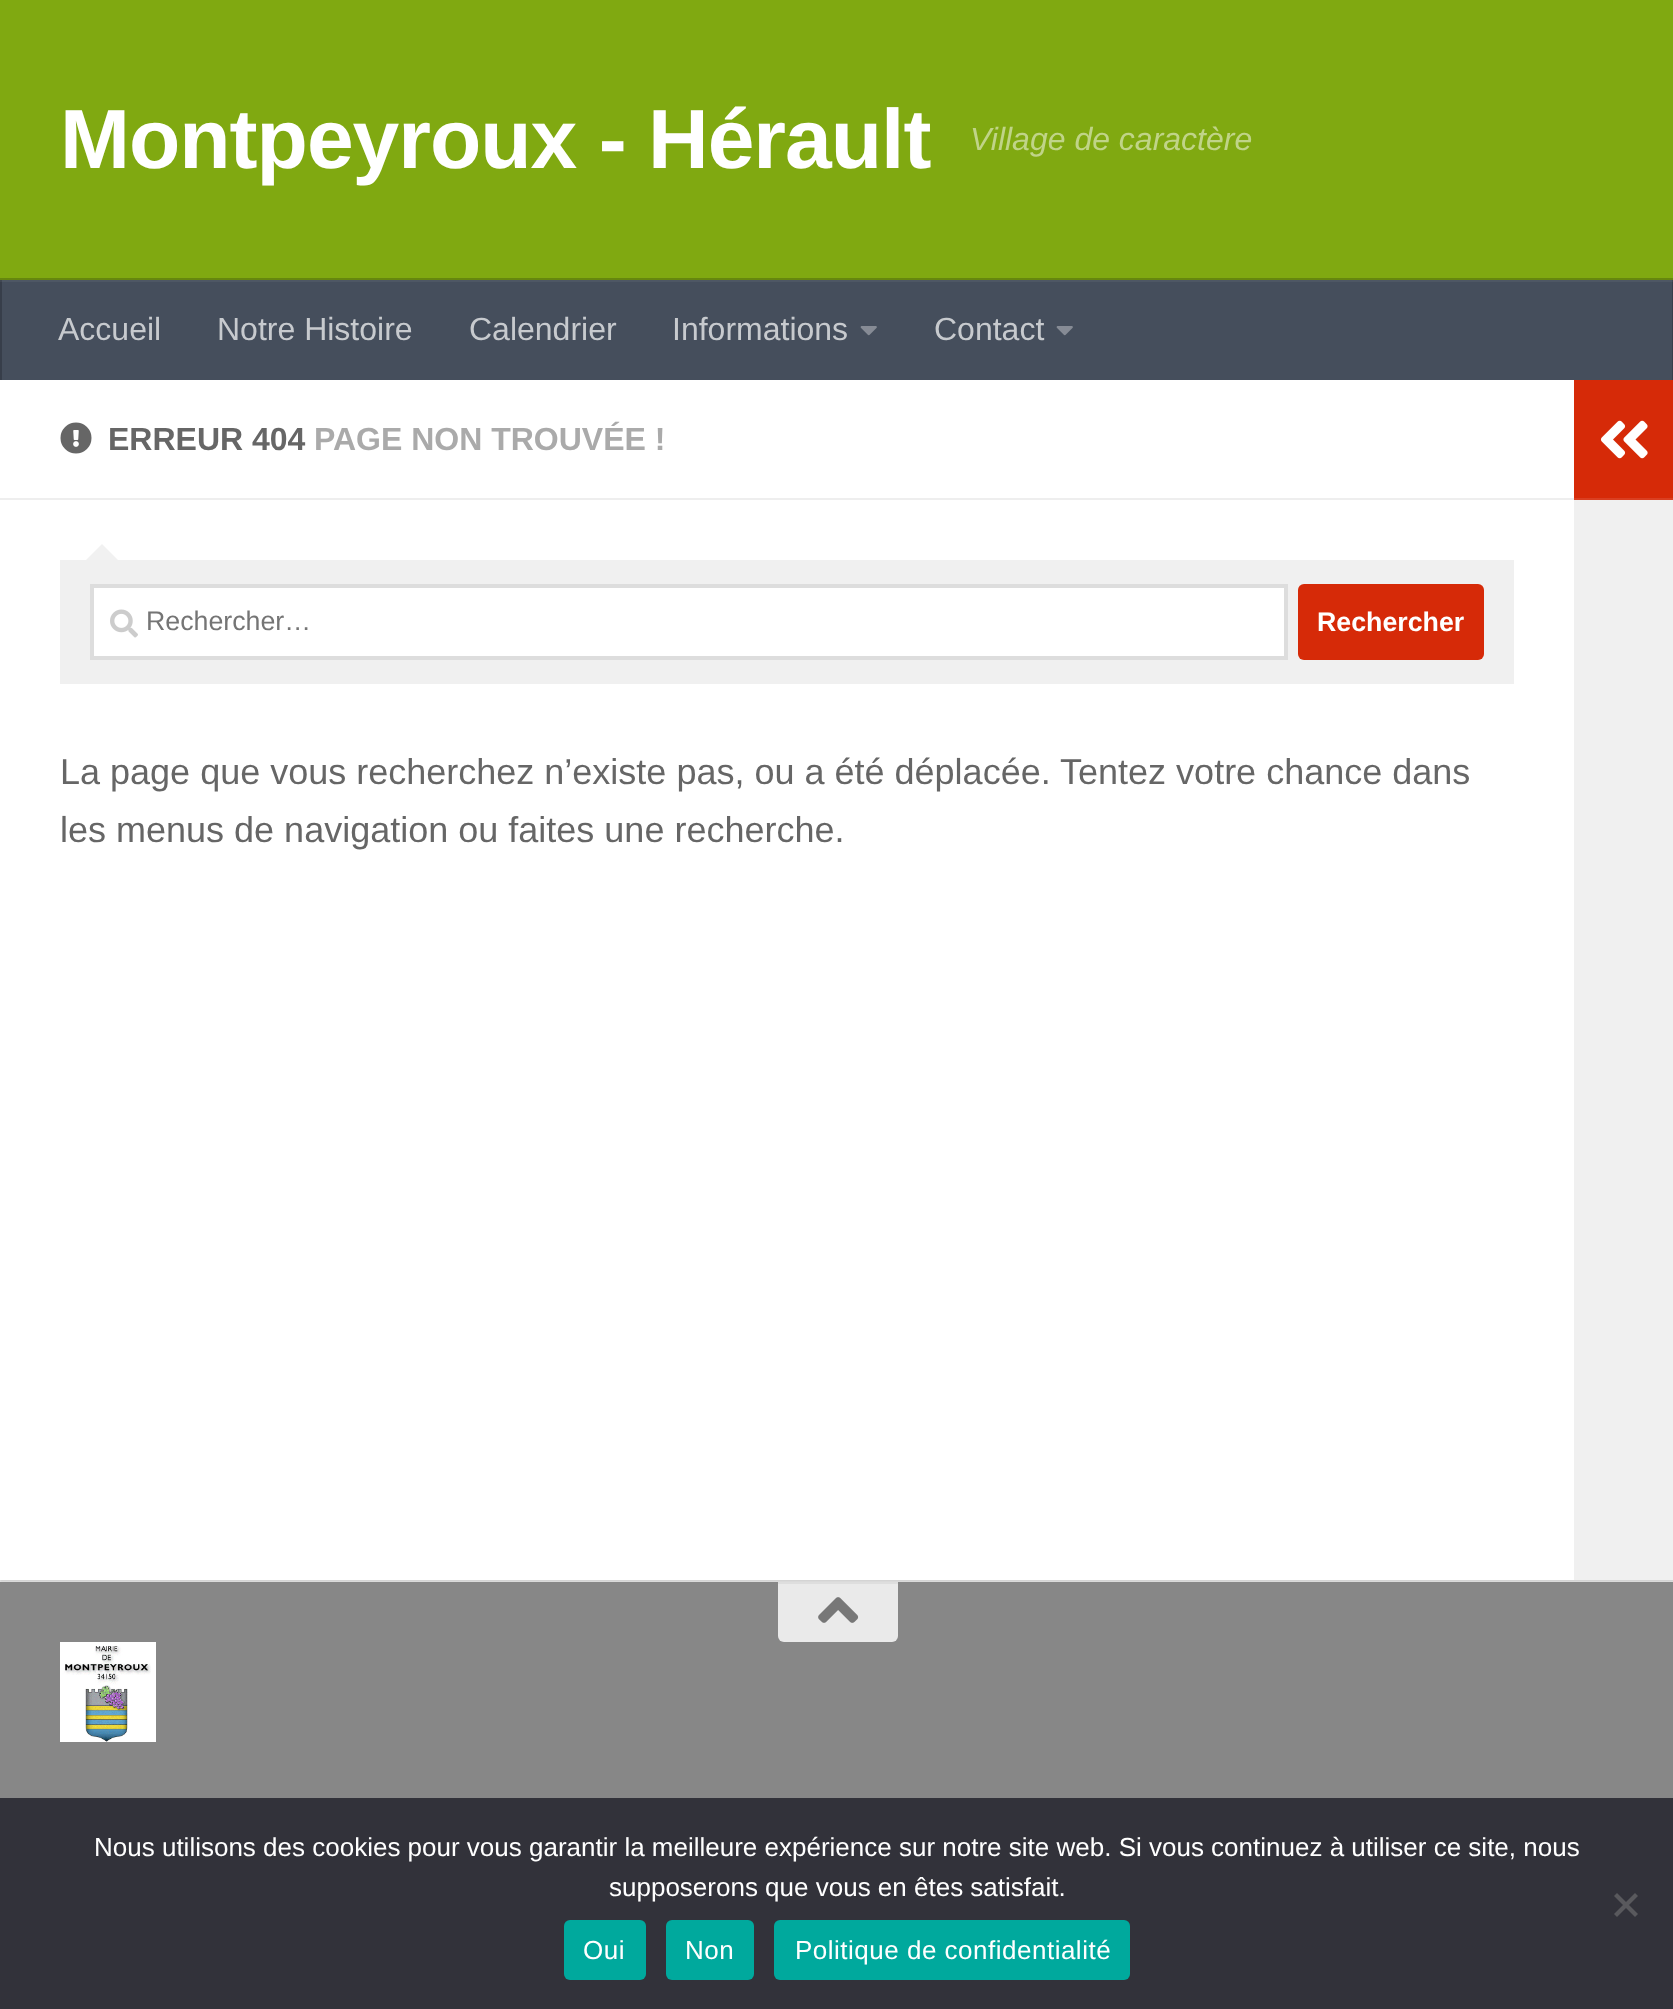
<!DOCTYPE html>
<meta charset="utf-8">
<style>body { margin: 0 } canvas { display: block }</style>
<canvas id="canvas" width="1673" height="2009"></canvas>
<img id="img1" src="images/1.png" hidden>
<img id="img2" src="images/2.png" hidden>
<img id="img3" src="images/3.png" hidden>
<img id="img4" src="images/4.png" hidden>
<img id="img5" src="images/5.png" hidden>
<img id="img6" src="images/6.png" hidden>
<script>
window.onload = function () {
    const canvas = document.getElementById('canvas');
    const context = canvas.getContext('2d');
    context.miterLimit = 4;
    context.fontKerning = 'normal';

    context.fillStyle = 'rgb(234, 234, 234)';
    context.fillRect(0, 0, 1673, 2009);
    context.fillStyle = 'rgb(128, 169, 17)';
    context.fillRect(0, 0, 1673, 278);
    context.fillStyle = 'rgb(102, 135, 14)';
    context.fillRect(0, 278, 1673, 2);
    context.fillStyle = 'rgba(0, 0, 0, 0.1)';
    context.filter = 'blur(1px)';
    context.beginPath();
    context.rect(0, 382, 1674, 1200);
    context.fill();
    context.filter = 'none';
    context.fillStyle = 'rgb(69, 78, 92)';
    context.fillRect(2, 282, 1670, 98);
    context.fillStyle = 'rgb(78, 87, 100)';
    context.fillRect(0, 280, 1673, 2);
    context.fillStyle = 'rgb(55, 62, 74)';
    context.fillRect(1672, 280, 1, 100);
    context.fillStyle = 'rgb(65, 72, 83)';
    context.fillRect(1672, 280, 1, 2);
    context.fillStyle = 'rgb(55, 62, 74)';
    context.fillRect(0, 280, 2, 100);
    context.fillStyle = 'rgb(65, 72, 83)';
    context.fillRect(0, 280, 2, 2);
    context.drawImage(document.getElementById('img1'), 860, 326, 17, 10);
    context.drawImage(document.getElementById('img1'), 1056, 326, 17, 10);
    context.fillStyle = 'rgb(255, 255, 255)';
    context.fillRect(0, 380, 1574, 1200);
    context.fillStyle = 'rgb(238, 238, 238)';
    context.fillRect(0, 498, 1574, 2);
    context.drawImage(document.getElementById('img2'), 60, 422, 32, 32);
    context.fillStyle = 'rgb(240, 240, 240)';
    context.fillRect(60, 560, 1454, 124);
    context.fillStyle = 'rgb(241, 241, 241)';
    context.beginPath();
    context.moveTo(118, 560);
    context.lineTo(86, 560);
    context.lineTo(102, 544);
    context.closePath();
    context.fill();
    context.fillStyle = 'rgb(255, 255, 255)';
    context.beginPath();
    context.rect(92, 586, 1194, 72);
    context.fill();
    context.strokeStyle = 'rgb(221, 221, 221)';
    context.lineWidth = 4;
    context.stroke();
    context.drawImage(document.getElementById('img3'), 110, 609, 28, 29);
    context.fillStyle = 'rgb(214, 42, 8)';
    context.beginPath();
    context.roundRect(1298, 584, 186, 76, 6);
    context.fill();
    context.fillRect(1574, 380, 99, 118);
    context.fillStyle = 'rgb(218, 63, 33)';
    context.fillRect(1574, 498, 99, 2);
    context.drawImage(document.getElementById('img4'), 1600, 420, 48, 39);
    context.fillStyle = 'rgb(240, 240, 240)';
    context.fillRect(1574, 500, 99, 1080);
    context.fillStyle = 'rgb(135, 135, 135)';
    context.fillRect(0, 1582, 1673, 216);
    context.fillStyle = 'rgb(234, 234, 234)';
    context.beginPath();
    context.roundRect(778, 1582, 120, 60, [0, 0, 6, 6]);
    context.fill();
    context.fillStyle = 'rgb(222, 222, 222)';
    context.fillRect(778, 1582, 120, 2);
    context.drawImage(document.getElementById('img5'), 818, 1597, 41, 26);
    context.drawImage(document.getElementById('img6'), 60, 1642, 96, 100);
    context.fillStyle = 'rgb(50, 50, 58)';
    context.fillRect(0, 1798, 1673, 211);
    context.fillStyle = 'rgb(89, 89, 93)';
    context.beginPath();
    context.moveTo(1635, 1893);
    context.lineTo(1638, 1896);
    context.lineTo(1617, 1917);
    context.lineTo(1614, 1914);
    context.closePath();
    context.fill();
    context.beginPath();
    context.moveTo(1614, 1896);
    context.lineTo(1617, 1893);
    context.lineTo(1638, 1914);
    context.lineTo(1635, 1917);
    context.closePath();
    context.fill();
    context.fillStyle = 'rgb(0, 169, 157)';
    context.beginPath();
    context.roundRect(564, 1920, 82, 60, 6);
    context.fill();
    context.beginPath();
    context.roundRect(666, 1920, 88, 60, 6);
    context.fill();
    context.beginPath();
    context.roundRect(774, 1920, 356, 60, 6);
    context.fill();
    context.letterSpacing = '-1px';
    context.font = 'bold 84px Liberation Sans';
    context.fillStyle = 'rgb(255, 255, 255)';
    context.fillText('Montpeyroux - Hérault', 60, 168);
    context.letterSpacing = '0px';
    context.font = 'italic 32px Liberation Sans';
    context.fillStyle = 'rgb(192, 212, 136)';
    context.fillText('Village de caractère', 970, 150);
    context.font = '32px Liberation Sans';
    context.fillStyle = 'rgb(199, 202, 206)';
    context.fillText('Accueil', 58, 340);
    context.fillText('Notre Histoire', 217, 340);
    context.fillText('Calendrier', 469, 340);
    context.fillText('Informations', 672, 340);
    context.fillText('Contact', 934, 340);
    context.font = 'bold 32px Liberation Sans';
    context.fillStyle = 'rgb(102, 102, 102)';
    context.fillText('ERREUR 404', 108, 450);
    context.fillStyle = 'rgb(170, 170, 170)';
    context.fillText('PAGE NON TROUVÉE !', 314, 450);
    context.font = '26.75px Liberation Sans';
    context.fillStyle = 'rgb(117, 117, 117)';
    context.fillText('Rechercher…', 146, 630);
    context.font = 'bold 26.75px Liberation Sans';
    context.fillStyle = 'rgb(255, 255, 255)';
    context.fillText('Rechercher', 1317, 631);
    context.font = '36px Liberation Sans';
    context.fillStyle = 'rgb(102, 102, 102)';
    context.fillText('La page que vous recherchez n’existe pas, ou a été déplacée. Tentez votre chance dans', 60, 784);
    context.fillText('les menus de navigation ou faites une recherche.', 60, 842);
    context.font = '26px Liberation Sans';
    context.fillStyle = 'rgb(255, 255, 255)';
    context.fillText('Nous utilisons des cookies pour vous garantir la meilleure expérience sur notre site web. Si vous continuez à utiliser ce site, nous', 94, 1856);
    context.fillText('supposerons que vous en êtes satisfait.', 609, 1896);
    context.letterSpacing = '0.5px';
    context.fillText('Oui', 583, 1959);
    context.fillText('Non', 685, 1959);
    context.fillText('Politique de confidentialité', 795, 1959);
};
</script>
